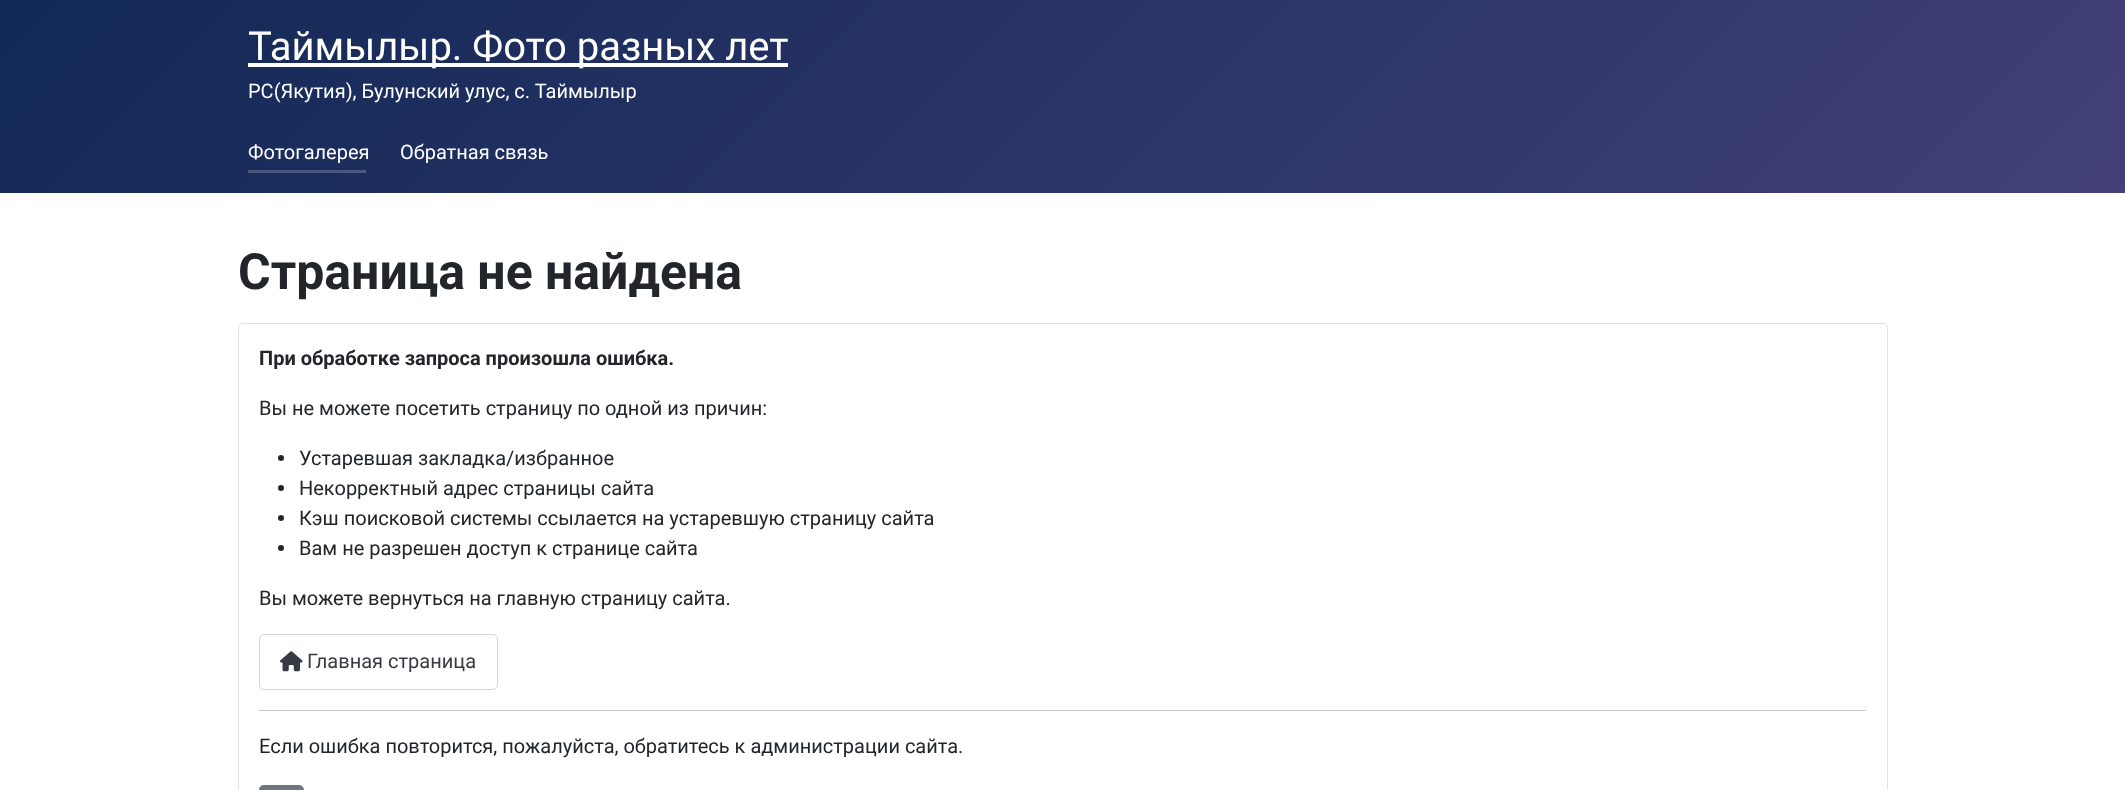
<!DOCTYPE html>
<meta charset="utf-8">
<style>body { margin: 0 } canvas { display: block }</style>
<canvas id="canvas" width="2125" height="790"></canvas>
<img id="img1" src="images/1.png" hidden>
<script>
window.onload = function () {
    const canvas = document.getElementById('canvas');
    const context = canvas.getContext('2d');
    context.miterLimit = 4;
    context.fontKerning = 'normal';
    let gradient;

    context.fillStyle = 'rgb(255, 255, 255)';
    context.fillRect(0, 0, 2125, 790);
    gradient = context.createLinearGradient(483, -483, 1642, 676);
    gradient.addColorStop(0, 'rgb(17, 40, 85)');
    gradient.addColorStop(1, 'rgb(66, 64, 119)');
    context.fillStyle = gradient;
    context.fillRect(0, 0, 2125, 193);
    context.fillStyle = 'rgb(255, 255, 255)';
    context.fillRect(248, 63, 540, 4);
    context.fillStyle = 'rgb(73, 87, 125)';
    context.fillRect(248, 170, 118, 3);
    context.beginPath();
    context.roundRect(238.5, 323.5, 1649, 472, 4.5);
    context.strokeStyle = 'rgb(223, 227, 231)';
    context.stroke();
    context.fillStyle = 'rgb(34, 38, 42)';
    context.beginPath();
    context.arc(281, 458, 3, 0, 2 * Math.PI);
    context.fill();
    context.beginPath();
    context.arc(281, 488, 3, 0, 2 * Math.PI);
    context.fill();
    context.beginPath();
    context.arc(281, 518, 3, 0, 2 * Math.PI);
    context.fill();
    context.beginPath();
    context.arc(281, 548, 3, 0, 2 * Math.PI);
    context.fill();
    context.beginPath();
    context.roundRect(259.5, 634.5, 238, 55, 4.5);
    context.strokeStyle = 'rgb(206, 212, 218)';
    context.stroke();
    context.drawImage(document.getElementById('img1'), 280, 651, 23, 21);
    context.fillStyle = 'rgb(200, 201, 202)';
    context.fillRect(259, 710, 1607, 1);
    context.fillStyle = 'rgb(109, 117, 126)';
    context.beginPath();
    context.roundRect(259, 785, 45, 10, 5);
    context.fill();
    context.font = '40px Roboto';
    context.fillStyle = 'rgb(255, 255, 255)';
    context.fillText('Таймылыр. Фото разных лет', 248, 60);
    context.font = '20px Roboto';
    context.fillText('РС(Якутия), Булунский улус, с. Таймылыр', 248, 98);
    context.fillText('Фотогалерея', 248, 159);
    context.fillText('Обратная связь', 400, 159);
    context.font = 'bold 50px Roboto';
    context.fillStyle = 'rgb(34, 38, 42)';
    context.fillText('Страница не найдена', 238, 289);
    context.font = 'bold 20px Roboto';
    context.fillText('При обработке запроса произошла ошибка.', 259, 365);
    context.font = '20px Roboto';
    context.fillText('Вы не можете посетить страницу по одной из причин:', 259, 415);
    context.fillText('Устаревшая закладка/избранное', 299, 465);
    context.fillText('Некорректный адрес страницы сайта', 299, 495);
    context.fillText('Кэш поисковой системы ссылается на устаревшую страницу сайта', 299, 525);
    context.fillText('Вам не разрешен доступ к странице сайта', 299, 555);
    context.fillText('Вы можете вернуться на главную страницу сайта.', 259, 605);
    context.fillStyle = 'rgb(53, 59, 65)';
    context.fillText('Главная страница', 307, 668);
    context.fillStyle = 'rgb(34, 38, 42)';
    context.fillText('Если ошибка повторится, пожалуйста, обратитесь к администрации сайта.', 259, 753);
};
</script>
